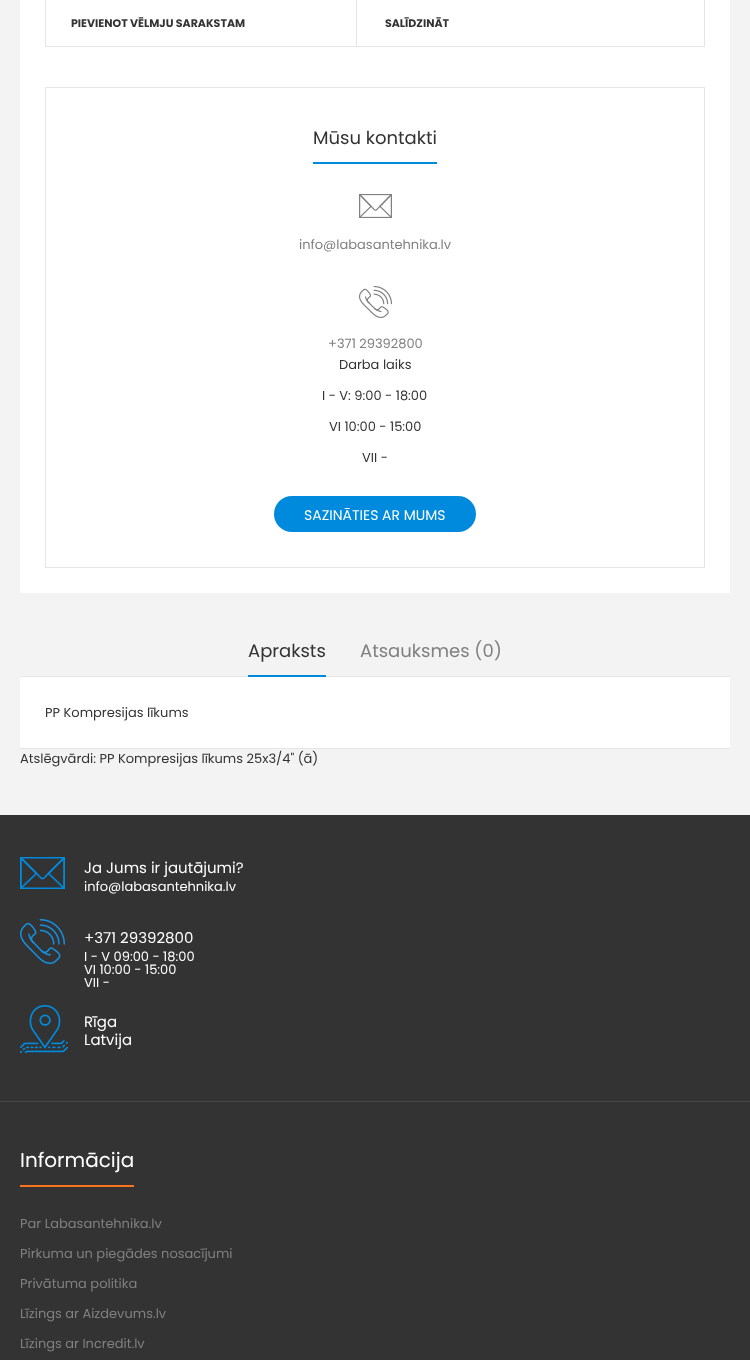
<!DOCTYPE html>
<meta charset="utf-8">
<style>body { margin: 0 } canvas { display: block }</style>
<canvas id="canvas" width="750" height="1360"></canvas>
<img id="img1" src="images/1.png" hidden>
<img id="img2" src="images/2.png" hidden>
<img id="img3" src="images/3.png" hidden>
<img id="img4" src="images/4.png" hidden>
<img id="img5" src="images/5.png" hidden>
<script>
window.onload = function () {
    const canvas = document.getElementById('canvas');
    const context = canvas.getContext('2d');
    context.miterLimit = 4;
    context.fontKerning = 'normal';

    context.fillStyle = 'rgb(243, 243, 243)';
    context.fillRect(0, 0, 750, 1360);
    context.fillStyle = 'rgb(255, 255, 255)';
    context.fillRect(20, 0, 710, 593);
    context.strokeStyle = 'rgb(229, 229, 229)';
    context.strokeRect(45.5, -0.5, 659, 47);
    context.fillStyle = 'rgb(229, 229, 229)';
    context.fillRect(356, 0, 1, 46);
    context.strokeRect(45.5, 87.5, 659, 480);
    context.fillStyle = 'rgb(0, 138, 221)';
    context.fillRect(313, 162, 124, 2);
    context.drawImage(document.getElementById('img1'), 359, 194, 33, 24);
    context.drawImage(document.getElementById('img2'), 359, 286, 33, 32);
    context.beginPath();
    context.roundRect(274, 496, 202, 36, 18);
    context.fill();
    context.fillStyle = 'rgb(230, 230, 230)';
    context.fillRect(20, 676, 710, 1);
    context.fillStyle = 'rgb(0, 138, 221)';
    context.fillRect(248, 675, 78, 2);
    context.fillStyle = 'rgb(255, 255, 255)';
    context.fillRect(20, 677, 710, 71);
    context.fillStyle = 'rgb(230, 230, 230)';
    context.fillRect(20, 748, 710, 1);
    context.fillStyle = 'rgb(51, 51, 51)';
    context.fillRect(0, 815, 750, 545);
    context.drawImage(document.getElementById('img3'), 20, 857, 45, 32);
    context.drawImage(document.getElementById('img4'), 20, 919, 45, 45);
    context.drawImage(document.getElementById('img5'), 20, 1005, 48, 48);
    context.fillStyle = 'rgb(71, 71, 71)';
    context.fillRect(0, 1101, 750, 1);
    context.fillStyle = 'rgb(252, 116, 27)';
    context.fillRect(20, 1185, 114, 2);
    context.font = 'bold 11px Poppins';
    context.fillStyle = 'rgb(51, 51, 51)';
    context.fillText('PIEVIENOT VĒLMJU SARAKSTAM', 71, 27);
    context.fillText('SALĪDZINĀT', 385, 27);
    context.font = '18px Poppins';
    context.fillText('Mūsu kontakti', 313, 144);
    context.font = '13px Poppins';
    context.fillStyle = 'rgb(128, 128, 128)';
    context.fillText('info@labasantehnika.lv', 299, 249);
    context.fillText('+371 29392800', 328, 348);
    context.fillStyle = 'rgb(51, 51, 51)';
    context.fillText('Darba laiks', 339, 369);
    context.fillText('I - V: 9:00 - 18:00', 322, 400);
    context.fillText('VI 10:00 - 15:00', 329, 431);
    context.fillText('VII -', 362, 462);
    context.font = '14px Poppins';
    context.fillStyle = 'rgb(255, 255, 255)';
    context.fillText('SAZINĀTIES AR MUMS', 304, 520);
    context.font = '18px Poppins';
    context.fillStyle = 'rgb(51, 51, 51)';
    context.fillText('Apraksts', 248, 657);
    context.fillStyle = 'rgb(128, 128, 128)';
    context.fillText('Atsauksmes (0)', 360, 657);
    context.font = '13px Poppins';
    context.fillStyle = 'rgb(51, 51, 51)';
    context.fillText('PP Kompresijas līkums', 45, 717);
    context.fillText('Atslēgvārdi: PP Kompresijas līkums 25x3/4" (ā)', 20, 763);
    context.font = '15px Poppins';
    context.fillStyle = 'rgb(255, 255, 255)';
    context.fillText('Ja Jums ir jautājumi?', 84, 873);
    context.font = '13px Poppins';
    context.fillText('info@labasantehnika.lv', 84, 891);
    context.font = '15px Poppins';
    context.fillText('+371 29392800', 84, 943);
    context.font = '13px Poppins';
    context.fillText('I - V 09:00 - 18:00', 84, 961);
    context.fillText('VI 10:00 - 15:00', 84, 974);
    context.fillText('VII -', 84, 987);
    context.font = '15px Poppins';
    context.fillText('Rīga', 84, 1027);
    context.fillText('Latvija', 84, 1045);
    context.font = '20px Poppins';
    context.fillText('Informācija', 20, 1167);
    context.font = '13px Poppins';
    context.fillStyle = 'rgb(128, 128, 128)';
    context.fillText('Par Labasantehnika.lv', 20, 1228);
    context.fillText('Pirkuma un piegādes nosacījumi', 20, 1258);
    context.fillText('Privātuma politika', 20, 1288);
    context.fillText('Līzings ar Aizdevums.lv', 20, 1318);
    context.fillText('Līzings ar Incredit.lv', 20, 1348);
};
</script>
